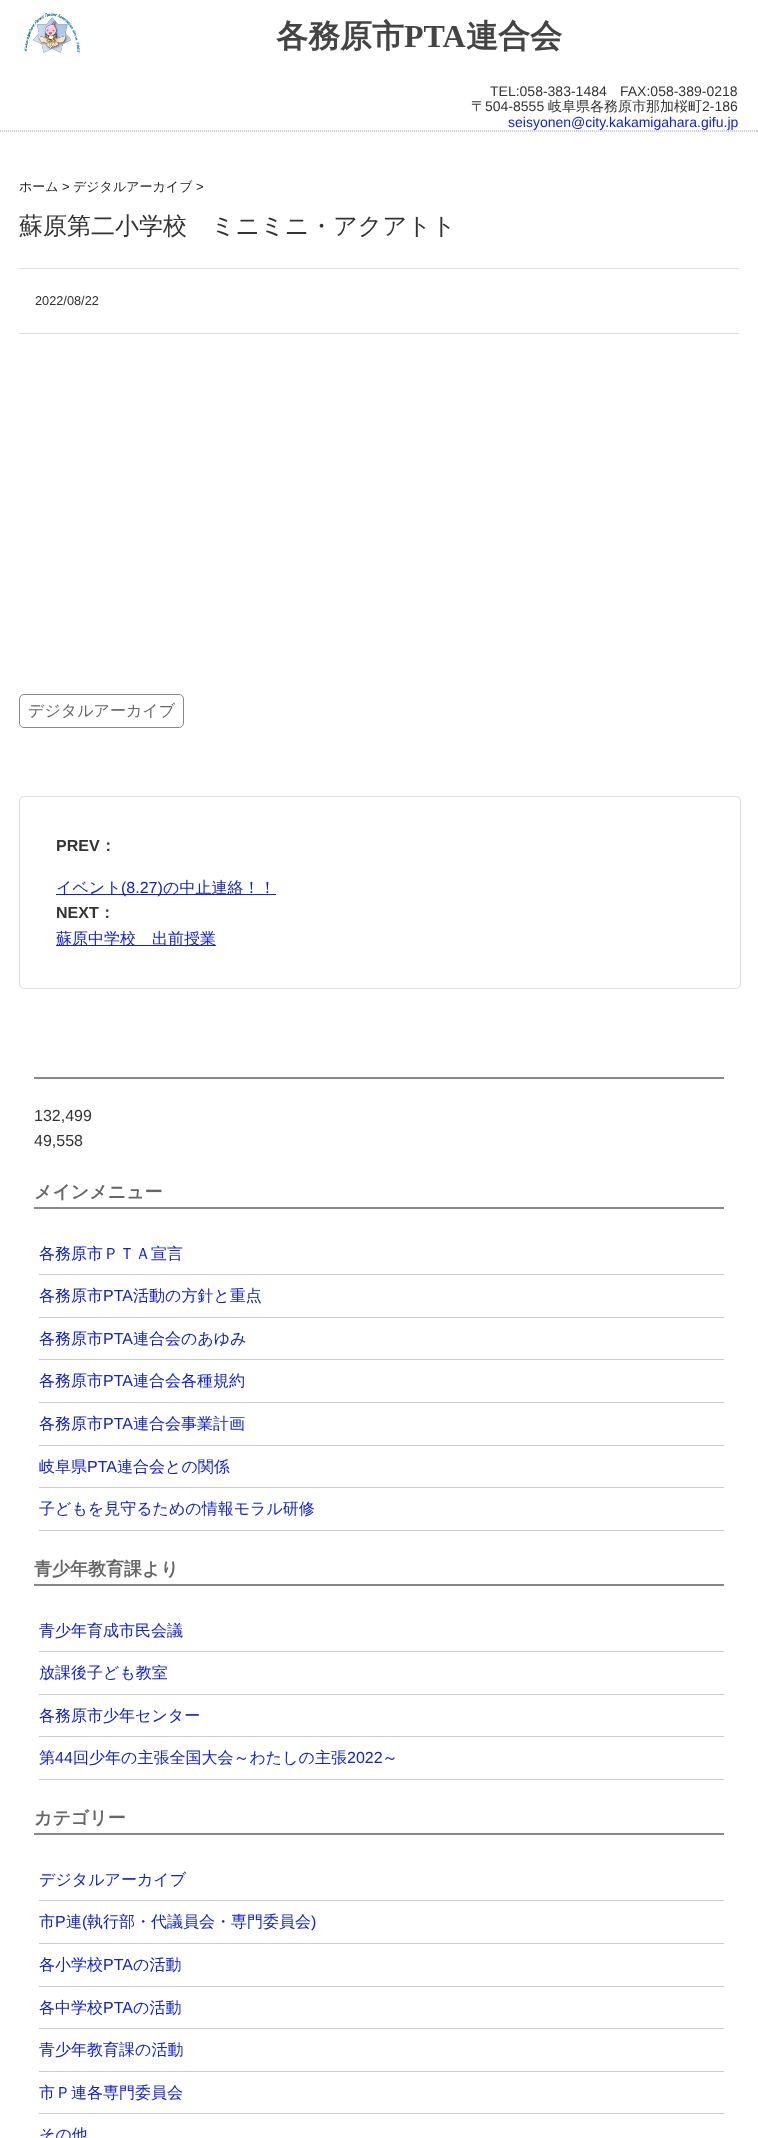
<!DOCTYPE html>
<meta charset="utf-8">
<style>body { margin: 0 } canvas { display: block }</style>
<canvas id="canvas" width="758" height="2138"></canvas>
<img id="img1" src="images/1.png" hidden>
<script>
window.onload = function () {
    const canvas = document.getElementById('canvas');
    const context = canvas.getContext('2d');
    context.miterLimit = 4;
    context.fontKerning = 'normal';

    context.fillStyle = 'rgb(255, 255, 255)';
    context.fillRect(0, 0, 758, 2138);
    context.drawImage(document.getElementById('img1'), 24, 12, 56, 41);
    context.beginPath();
    context.moveTo(0, 130.5);
    context.lineTo(758, 130.5);
    context.strokeStyle = 'rgb(206, 206, 206)';
    context.setLineDash([1, 1]);
    context.stroke();
    context.fillStyle = 'rgb(206, 206, 206)';
    context.fillRect(757, 130, 1, 2);
    context.beginPath();
    context.moveTo(0, 131.5);
    context.lineTo(758, 131.5);
    context.stroke();
    context.fillStyle = 'rgb(221, 221, 221)';
    context.fillRect(19, 268, 720, 1);
    context.fillRect(19, 333, 720, 1);
    context.beginPath();
    context.roundRect(19.5, 694.5, 164, 33, 4.5);
    context.strokeStyle = 'rgb(136, 136, 136)';
    context.setLineDash([]);
    context.stroke();
    context.beginPath();
    context.roundRect(19.5, 796.5, 721, 192, 4.5);
    context.strokeStyle = 'rgb(221, 221, 221)';
    context.stroke();
    context.fillStyle = 'rgb(17, 34, 204)';
    context.fillRect(56, 894, 220, 1);
    context.fillRect(56, 945, 160, 1);
    context.fillStyle = 'rgb(136, 136, 136)';
    context.fillRect(34, 1077, 690, 2);
    context.fillRect(34, 1207, 690, 2);
    context.fillStyle = 'rgb(204, 204, 204)';
    context.fillRect(39, 1274, 685, 1);
    context.fillRect(39, 1317, 685, 1);
    context.fillRect(39, 1359, 685, 1);
    context.fillRect(39, 1402, 685, 1);
    context.fillRect(39, 1445, 685, 1);
    context.fillRect(39, 1487, 685, 1);
    context.fillRect(39, 1530, 685, 1);
    context.fillStyle = 'rgb(136, 136, 136)';
    context.fillRect(34, 1584, 690, 2);
    context.fillStyle = 'rgb(204, 204, 204)';
    context.fillRect(39, 1651, 685, 1);
    context.fillRect(39, 1694, 685, 1);
    context.fillRect(39, 1736, 685, 1);
    context.fillRect(39, 1779, 685, 1);
    context.fillStyle = 'rgb(136, 136, 136)';
    context.fillRect(34, 1833, 690, 2);
    context.fillStyle = 'rgb(204, 204, 204)';
    context.fillRect(39, 1900, 685, 1);
    context.fillRect(39, 1943, 685, 1);
    context.fillRect(39, 1986, 685, 1);
    context.fillRect(39, 2028, 685, 1);
    context.fillRect(39, 2071, 685, 1);
    context.fillRect(39, 2113, 685, 1);
    context.font = 'bold 32px WenQuanYi Zen Hei';
    context.fillStyle = 'rgb(68, 68, 68)';
    context.fillText('各務原市', 276, 47);
    context.font = 'bold 32px Liberation Serif';
    context.fillText('PTA', 404, 47);
    context.font = 'bold 32px WenQuanYi Zen Hei';
    context.fillText('連合会', 466, 47);
    context.font = '14px Liberation Sans';
    context.fillStyle = 'rgb(51, 51, 51)';
    context.fillText('TEL:058-383-1484', 490, 96);
    context.fillText('FAX:058-389-0218', 620, 96);
    context.font = '500 14px WenQuanYi Zen Hei';
    context.fillText('〒', 471, 111);
    context.font = '14px Liberation Sans';
    context.fillText('504-8555', 485, 111);
    context.font = '500 14px WenQuanYi Zen Hei';
    context.fillText('岐阜県各務原市那加桜町', 548, 111);
    context.font = '14px Liberation Sans';
    context.fillText('2-186', 702, 111);
    context.fillStyle = 'rgb(17, 34, 204)';
    context.fillText('seisyonen@city.kakamigahara.gifu.jp', 508, 127);
    context.font = '500 13px WenQuanYi Zen Hei';
    context.fillStyle = 'rgb(34, 34, 34)';
    context.fillText('ホーム', 19, 191);
    context.font = '13px Liberation Sans';
    context.fillText('>', 62, 191);
    context.font = '500 13px WenQuanYi Zen Hei';
    context.fillText('デジタルアーカイブ', 73, 191);
    context.font = '13px Liberation Sans';
    context.fillText('>', 196, 191);
    context.font = '500 24px WenQuanYi Zen Hei';
    context.fillStyle = 'rgb(51, 51, 51)';
    context.fillText('蘇原第二小学校　ミニミニ・アクアトト', 19, 234);
    context.font = '12.75px Liberation Sans';
    context.fillText('2022/08/22', 35, 305);
    context.font = '500 16px WenQuanYi Zen Hei';
    context.fillStyle = 'rgb(102, 102, 102)';
    context.fillText('デジタルアーカイブ', 28, 716);
    context.font = 'bold 16px Liberation Sans';
    context.fillStyle = 'rgb(51, 51, 51)';
    context.fillText('PREV', 56, 851);
    context.font = 'bold 16px WenQuanYi Zen Hei';
    context.fillText('：', 100, 851);
    context.font = '500 16px WenQuanYi Zen Hei';
    context.fillStyle = 'rgb(17, 34, 204)';
    context.fillText('イベント', 56, 893);
    context.font = '16px Liberation Sans';
    context.fillText('(8.27)', 121, 893);
    context.font = '500 16px WenQuanYi Zen Hei';
    context.fillText('の中止連絡！！', 163, 893);
    context.font = 'bold 16px Liberation Sans';
    context.fillStyle = 'rgb(51, 51, 51)';
    context.fillText('NEXT', 56, 918);
    context.font = 'bold 16px WenQuanYi Zen Hei';
    context.fillText('：', 99, 918);
    context.font = '500 16px WenQuanYi Zen Hei';
    context.fillStyle = 'rgb(17, 34, 204)';
    context.fillText('蘇原中学校　出前授業', 56, 944);
    context.font = '16px Liberation Sans';
    context.fillStyle = 'rgb(51, 51, 51)';
    context.fillText('132,499', 34, 1121);
    context.fillText('49,558', 34, 1146);
    context.font = 'bold 18px WenQuanYi Zen Hei';
    context.fillStyle = 'rgb(102, 102, 102)';
    context.fillText('メインメニュー', 34, 1198);
    context.font = '500 16px WenQuanYi Zen Hei';
    context.fillStyle = 'rgb(17, 34, 204)';
    context.fillText('各務原市ＰＴＡ宣言', 39, 1259);
    context.fillText('各務原市', 39, 1301);
    context.font = '16px Liberation Sans';
    context.fillText('PTA', 103, 1301);
    context.font = '500 16px WenQuanYi Zen Hei';
    context.fillText('活動の方針と重点', 133, 1301);
    context.fillText('各務原市', 39, 1344);
    context.font = '16px Liberation Sans';
    context.fillText('PTA', 103, 1344);
    context.font = '500 16px WenQuanYi Zen Hei';
    context.fillText('連合会のあゆみ', 133, 1344);
    context.fillText('各務原市', 39, 1386);
    context.font = '16px Liberation Sans';
    context.fillText('PTA', 103, 1386);
    context.font = '500 16px WenQuanYi Zen Hei';
    context.fillText('連合会各種規約', 133, 1386);
    context.fillText('各務原市', 39, 1429);
    context.font = '16px Liberation Sans';
    context.fillText('PTA', 103, 1429);
    context.font = '500 16px WenQuanYi Zen Hei';
    context.fillText('連合会事業計画', 133, 1429);
    context.fillText('岐阜県', 39, 1472);
    context.font = '16px Liberation Sans';
    context.fillText('PTA', 87, 1472);
    context.font = '500 16px WenQuanYi Zen Hei';
    context.fillText('連合会との関係', 117, 1472);
    context.fillText('子どもを見守るための情報モラル研修', 39, 1514);
    context.font = 'bold 18px WenQuanYi Zen Hei';
    context.fillStyle = 'rgb(102, 102, 102)';
    context.fillText('青少年教育課より', 34, 1575);
    context.font = '500 16px WenQuanYi Zen Hei';
    context.fillStyle = 'rgb(17, 34, 204)';
    context.fillText('青少年育成市民会議', 39, 1636);
    context.fillText('放課後子ども教室', 39, 1678);
    context.fillText('各務原市少年センター', 39, 1721);
    context.fillText('第', 39, 1763);
    context.font = '16px Liberation Sans';
    context.fillText('44', 55, 1763);
    context.font = '500 16px WenQuanYi Zen Hei';
    context.fillText('回少年の主張全国大会～わたしの主張', 73, 1763);
    context.font = '16px Liberation Sans';
    context.fillText('2022', 347, 1763);
    context.font = '500 16px WenQuanYi Zen Hei';
    context.fillText('～', 382, 1763);
    context.font = 'bold 18px WenQuanYi Zen Hei';
    context.fillStyle = 'rgb(102, 102, 102)';
    context.fillText('カテゴリー', 34, 1824);
    context.font = '500 16px WenQuanYi Zen Hei';
    context.fillStyle = 'rgb(17, 34, 204)';
    context.fillText('デジタルアーカイブ', 39, 1885);
    context.fillText('市', 39, 1927);
    context.font = '16px Liberation Sans';
    context.fillText('P', 55, 1927);
    context.font = '500 16px WenQuanYi Zen Hei';
    context.fillText('連', 66, 1927);
    context.font = '16px Liberation Sans';
    context.fillText('(', 82, 1927);
    context.font = '500 16px WenQuanYi Zen Hei';
    context.fillText('執行部・代議員会・専門委員会', 87, 1927);
    context.font = '16px Liberation Sans';
    context.fillText(')', 311, 1927);
    context.font = '500 16px WenQuanYi Zen Hei';
    context.fillText('各小学校', 39, 1970);
    context.font = '16px Liberation Sans';
    context.fillText('PTA', 103, 1970);
    context.font = '500 16px WenQuanYi Zen Hei';
    context.fillText('の活動', 133, 1970);
    context.fillText('各中学校', 39, 2013);
    context.font = '16px Liberation Sans';
    context.fillText('PTA', 103, 2013);
    context.font = '500 16px WenQuanYi Zen Hei';
    context.fillText('の活動', 133, 2013);
    context.fillText('青少年教育課の活動', 39, 2055);
    context.fillText('市Ｐ連各専門委員会', 39, 2098);
    context.fillText('その他', 39, 2140);
};
</script>
